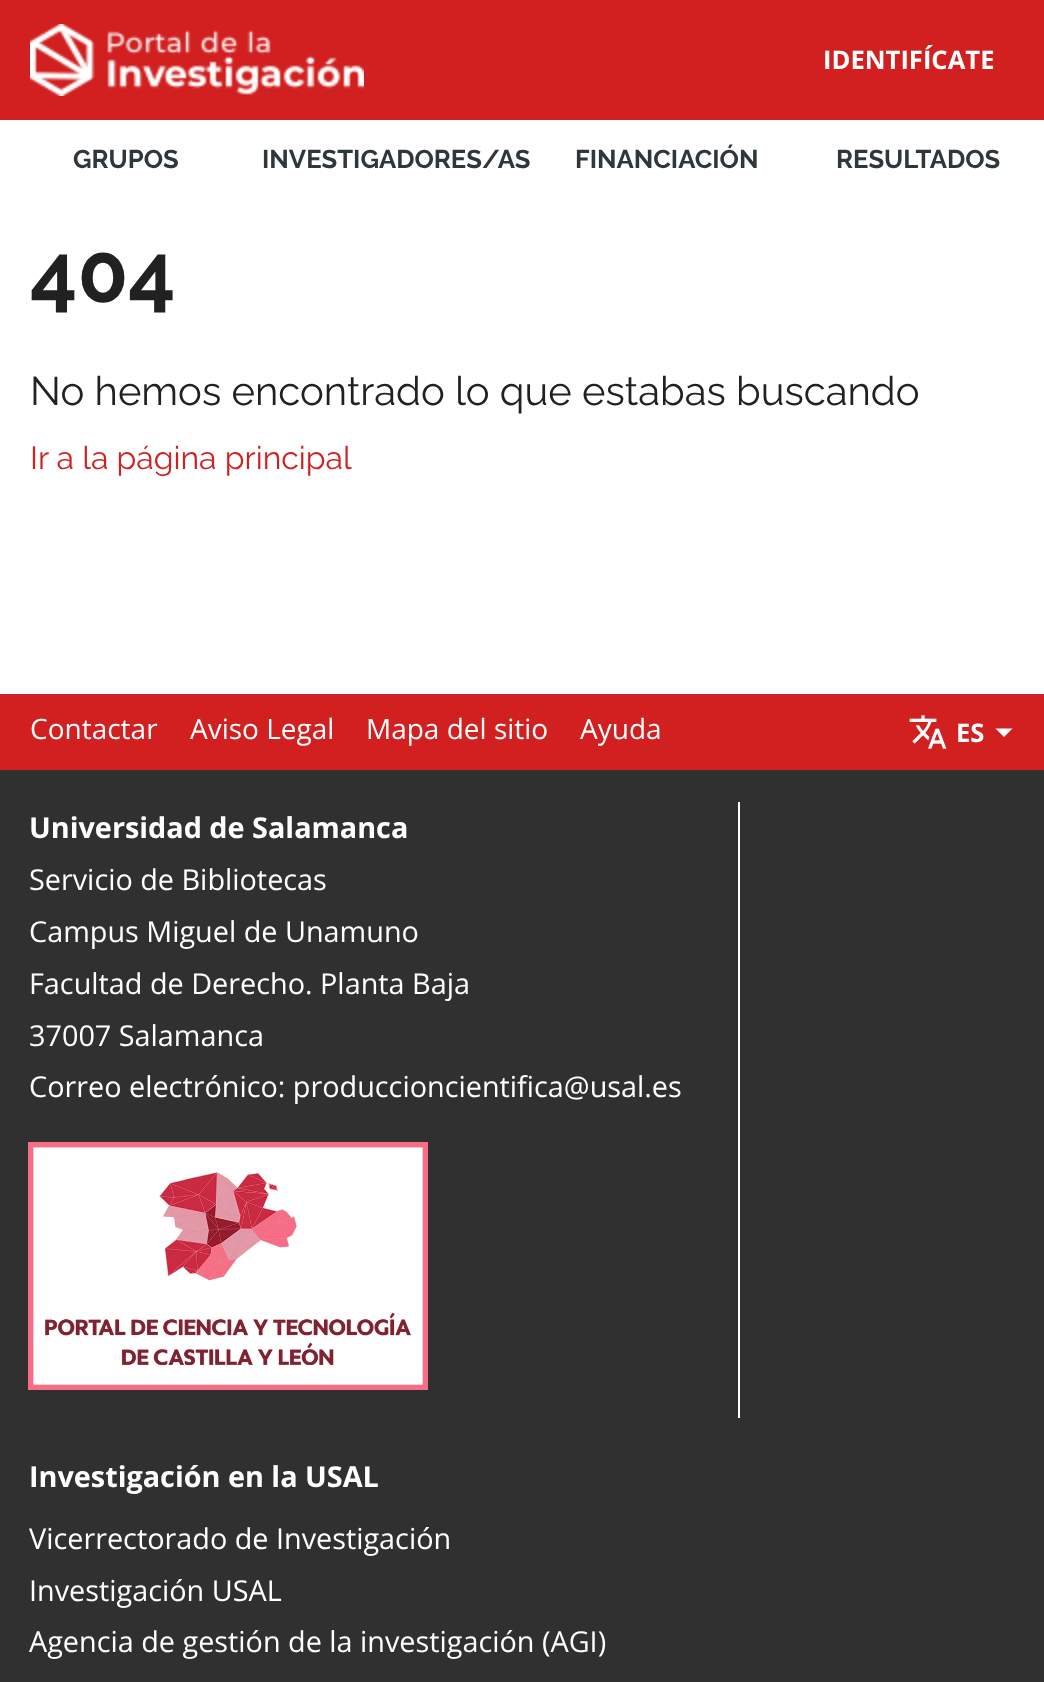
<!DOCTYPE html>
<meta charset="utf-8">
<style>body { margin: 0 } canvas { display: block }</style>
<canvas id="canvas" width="1044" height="1682"></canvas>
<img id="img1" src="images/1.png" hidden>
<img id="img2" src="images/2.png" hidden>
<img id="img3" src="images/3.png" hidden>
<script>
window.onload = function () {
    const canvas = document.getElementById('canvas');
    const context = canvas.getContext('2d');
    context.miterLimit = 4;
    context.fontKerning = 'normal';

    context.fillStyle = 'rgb(255, 255, 255)';
    context.fillRect(0, 0, 1044, 1682);
    context.fillStyle = 'rgb(210, 32, 32)';
    context.fillRect(0, 0, 1044, 120);
    context.drawImage(document.getElementById('img1'), 30, 24, 334, 72);
    context.fillRect(0, 694, 1044, 76);
    context.drawImage(document.getElementById('img2'), 909, 715, 38, 34);
    context.fillStyle = 'rgb(255, 255, 255)';
    context.beginPath();
    context.moveTo(995.5, 728.5);
    context.lineTo(1012.5, 728.5);
    context.lineTo(1004, 737);
    context.closePath();
    context.fill();
    context.fillStyle = 'rgb(48, 48, 48)';
    context.fillRect(0, 770, 1044, 912);
    context.fillStyle = 'rgb(255, 255, 255)';
    context.fillRect(738, 802, 2, 616);
    context.drawImage(document.getElementById('img3'), 28, 1142, 400, 248);
    context.font = 'bold 25.6px Open Sans';
    context.fillText('IDENTIFÍCATE', 823, 69);
    context.font = 'bold 25.6px Raleway';
    context.fillStyle = 'rgb(45, 55, 60)';
    context.fillText('GRUPOS', 73, 168);
    context.fillText('INVESTIGADORES/AS', 262, 168);
    context.fillText('FINANCIACIÓN', 575, 168);
    context.fillText('RESULTADOS', 836, 168);
    context.font = 'bold 83px Raleway';
    context.fillStyle = 'rgb(33, 33, 33)';
    context.fillText('404', 30, 302);
    context.font = '40px Raleway';
    context.fillText('No hemos encontrado lo que estabas buscando', 30, 405);
    context.font = '32px Raleway';
    context.fillStyle = 'rgb(210, 32, 32)';
    context.fillText('Ir a la página principal', 30, 469);
    context.font = '28px Open Sans';
    context.fillStyle = 'rgb(255, 255, 255)';
    context.fillText('Contactar', 30, 739);
    context.fillText('Aviso Legal', 190, 739);
    context.fillText('Mapa del sitio', 366, 739);
    context.fillText('Ayuda', 580, 739);
    context.font = 'bold 25.6px Open Sans';
    context.fillText('ES', 956, 742);
    context.font = 'bold 28.8px Open Sans';
    context.fillText('Universidad de Salamanca', 29, 838);
    context.font = '28.8px Open Sans';
    context.fillText('Servicio de Bibliotecas', 29, 890);
    context.fillText('Campus Miguel de Unamuno', 29, 942);
    context.fillText('Facultad de Derecho. Planta Baja', 29, 994);
    context.fillText('37007 Salamanca', 29, 1046);
    context.fillText('Correo electrónico: produccioncientifica@usal.es', 29, 1097);
    context.font = 'bold 28.8px Open Sans';
    context.fillText('Investigación en la USAL', 29, 1487);
    context.font = '28.8px Open Sans';
    context.fillText('Vicerrectorado de Investigación', 29, 1549);
    context.fillText('Investigación USAL', 29, 1601);
    context.fillText('Agencia de gestión de la investigación (AGI)', 29, 1652);
};
</script>
